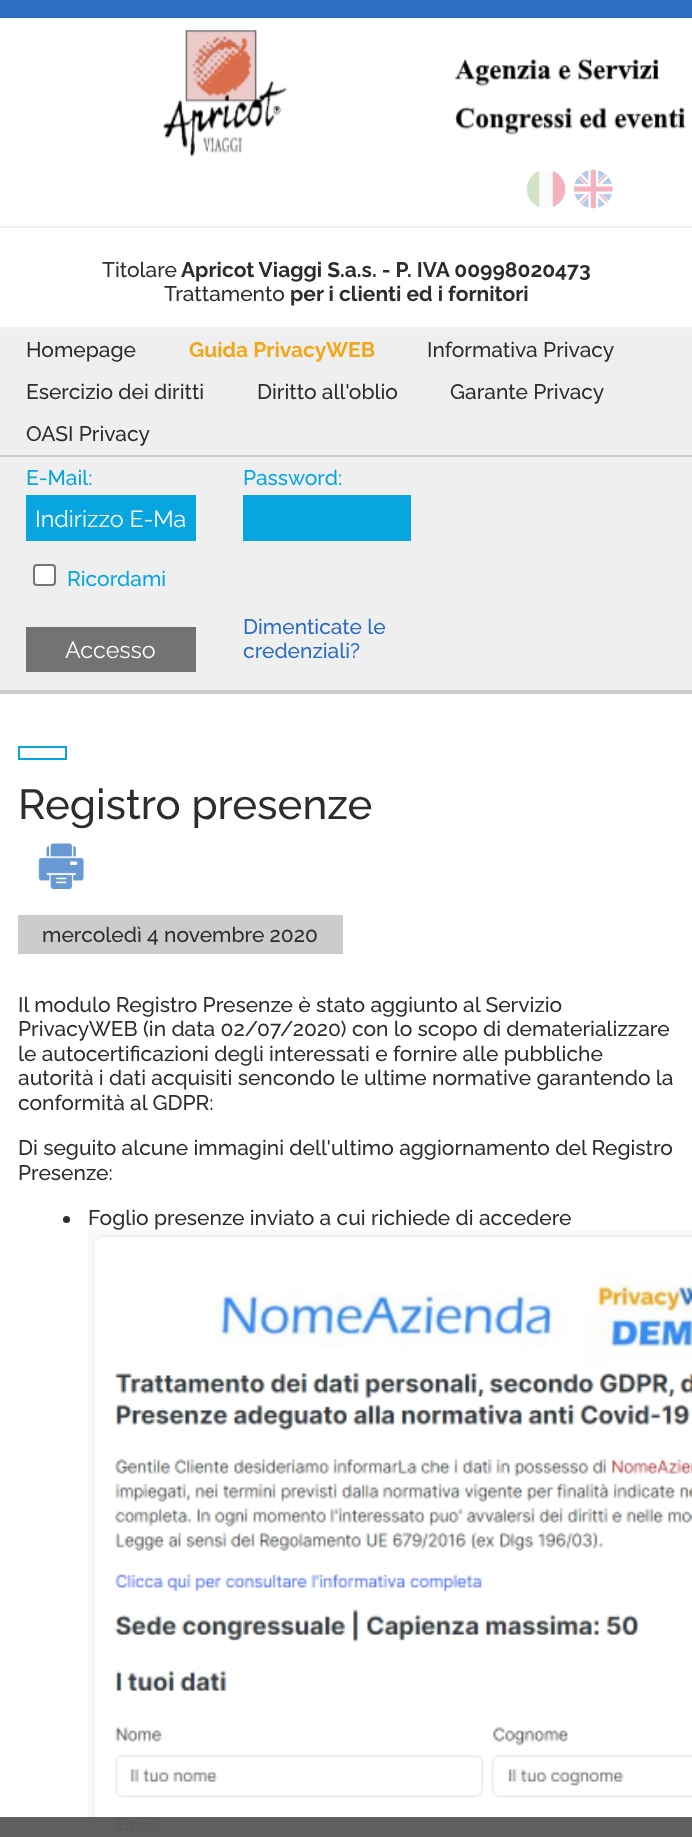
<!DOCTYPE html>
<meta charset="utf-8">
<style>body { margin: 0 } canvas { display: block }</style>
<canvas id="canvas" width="692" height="1837"></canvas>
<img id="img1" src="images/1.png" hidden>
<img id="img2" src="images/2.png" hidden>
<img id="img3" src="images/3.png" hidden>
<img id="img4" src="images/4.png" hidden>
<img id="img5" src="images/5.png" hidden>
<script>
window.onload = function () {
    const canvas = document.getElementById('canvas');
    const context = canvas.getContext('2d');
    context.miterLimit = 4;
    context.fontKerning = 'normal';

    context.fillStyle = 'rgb(255, 255, 255)';
    context.fillRect(0, 0, 692, 1837);
    context.fillStyle = 'rgb(44, 110, 194)';
    context.fillRect(0, 0, 692, 18);
    context.fillStyle = 'rgb(241, 241, 241)';
    context.fillRect(0, 226, 692, 2);
    context.drawImage(document.getElementById('img1'), 163, 30, 523, 127);
    context.drawImage(document.getElementById('img2'), 526, 170, 40, 38);
    context.drawImage(document.getElementById('img3'), 574, 169, 39, 40);
    context.fillRect(0, 327, 692, 2);
    context.fillStyle = 'rgb(204, 204, 204)';
    context.fillRect(0, 690, 692, 4);
    context.fillStyle = 'rgb(239, 239, 239)';
    context.fillRect(0, 329, 692, 126);
    context.fillRect(0, 457, 692, 233);
    context.fillStyle = 'rgb(204, 204, 204)';
    context.fillRect(0, 455, 692, 2);
    context.fillStyle = 'rgb(8, 165, 225)';
    context.fillRect(26, 495, 170, 46);
    context.fillRect(243, 495, 168, 46);
    context.fillStyle = 'rgb(255, 255, 255)';
    context.beginPath();
    context.roundRect(34, 565, 21, 20, 3);
    context.fill();
    context.strokeStyle = 'rgb(118, 118, 118)';
    context.lineWidth = 2;
    context.stroke();
    context.fillStyle = 'rgb(115, 115, 115)';
    context.fillRect(26, 627, 170, 45);
    context.strokeStyle = 'rgb(8, 165, 225)';
    context.strokeRect(19, 747, 47, 12);
    context.drawImage(document.getElementById('img4'), 38, 843, 46, 46);
    context.fillStyle = 'rgb(204, 204, 204)';
    context.fillRect(18, 915, 325, 39);
    context.fillStyle = 'rgb(45, 45, 45)';
    context.beginPath();
    context.arc(66.5, 1219.5, 3.5, 0, 2 * Math.PI);
    context.fill();
    context.drawImage(document.getElementById('img5'), 87, 1230, 605, 607);
    context.fillStyle = 'rgba(86, 86, 86, 0.95)';
    context.fillRect(0, 1817, 692, 20);
    context.font = '500 21px Raleway';
    context.fillStyle = 'rgb(45, 45, 45)';
    context.fillText('Titolare', 102, 277);
    context.font = 'bold 21px Raleway';
    context.fillText('Apricot Viaggi S.a.s. - P. IVA 00998020473', 181, 277);
    context.font = '500 21px Raleway';
    context.fillText('Trattamento', 164, 301);
    context.font = 'bold 21px Raleway';
    context.fillText('per i clienti ed i fornitori', 290, 301);
    context.font = '500 21px Raleway';
    context.fillText('Homepage', 26, 357);
    context.font = 'bold 21px Raleway';
    context.fillStyle = 'rgb(240, 167, 26)';
    context.fillText('Guida PrivacyWEB', 189, 357);
    context.font = '500 21px Raleway';
    context.fillStyle = 'rgb(45, 45, 45)';
    context.fillText('Informativa Privacy', 427, 357);
    context.fillText('Esercizio dei diritti', 26, 399);
    context.fillText('Diritto all\'oblio', 257, 399);
    context.fillText('Garante Privacy', 450, 399);
    context.fillText('OASI Privacy', 26, 441);
    context.fillStyle = 'rgb(8, 165, 225)';
    context.fillText('E-Mail:', 26, 485);
    context.font = '23.25px Raleway';
    context.fillStyle = 'rgb(255, 255, 255)';
    context.fillText('Indirizzo E-Ma', 35, 527);
    context.font = '500 21px Raleway';
    context.fillStyle = 'rgb(8, 165, 225)';
    context.fillText('Password:', 243, 485);
    context.fillText('Ricordami', 67, 586);
    context.font = '23.25px Raleway';
    context.fillStyle = 'rgb(255, 255, 255)';
    context.fillText('Accesso', 65, 658);
    context.font = '500 21px Raleway';
    context.fillStyle = 'rgb(44, 109, 194)';
    context.fillText('Dimenticate le', 243, 634);
    context.fillText('credenziali?', 243, 658);
    context.font = '500 42px Raleway';
    context.fillStyle = 'rgb(45, 45, 45)';
    context.fillText('Registro presenze', 18, 819);
    context.font = '500 21px Raleway';
    context.fillText('mercoledì 4 novembre 2020', 42, 942);
    context.fillText('Il modulo Registro Presenze è stato aggiunto al Servizio', 18, 1012);
    context.fillText('PrivacyWEB (in data 02/07/2020) con lo scopo di dematerializzare', 18, 1036);
    context.fillText('le autocertificazioni degli interessati e fornire alle pubbliche', 18, 1061);
    context.fillText('autorità i dati acquisiti sencondo le ultime normative garantendo la', 18, 1085);
    context.fillText('conformità al GDPR:', 18, 1110);
    context.fillText('Di seguito alcune immagini dell\'ultimo aggiornamento del Registro', 18, 1155);
    context.fillText('Presenze:', 18, 1180);
    context.fillText('Foglio presenze inviato a cui richiede di accedere', 88, 1225);
};
</script>
